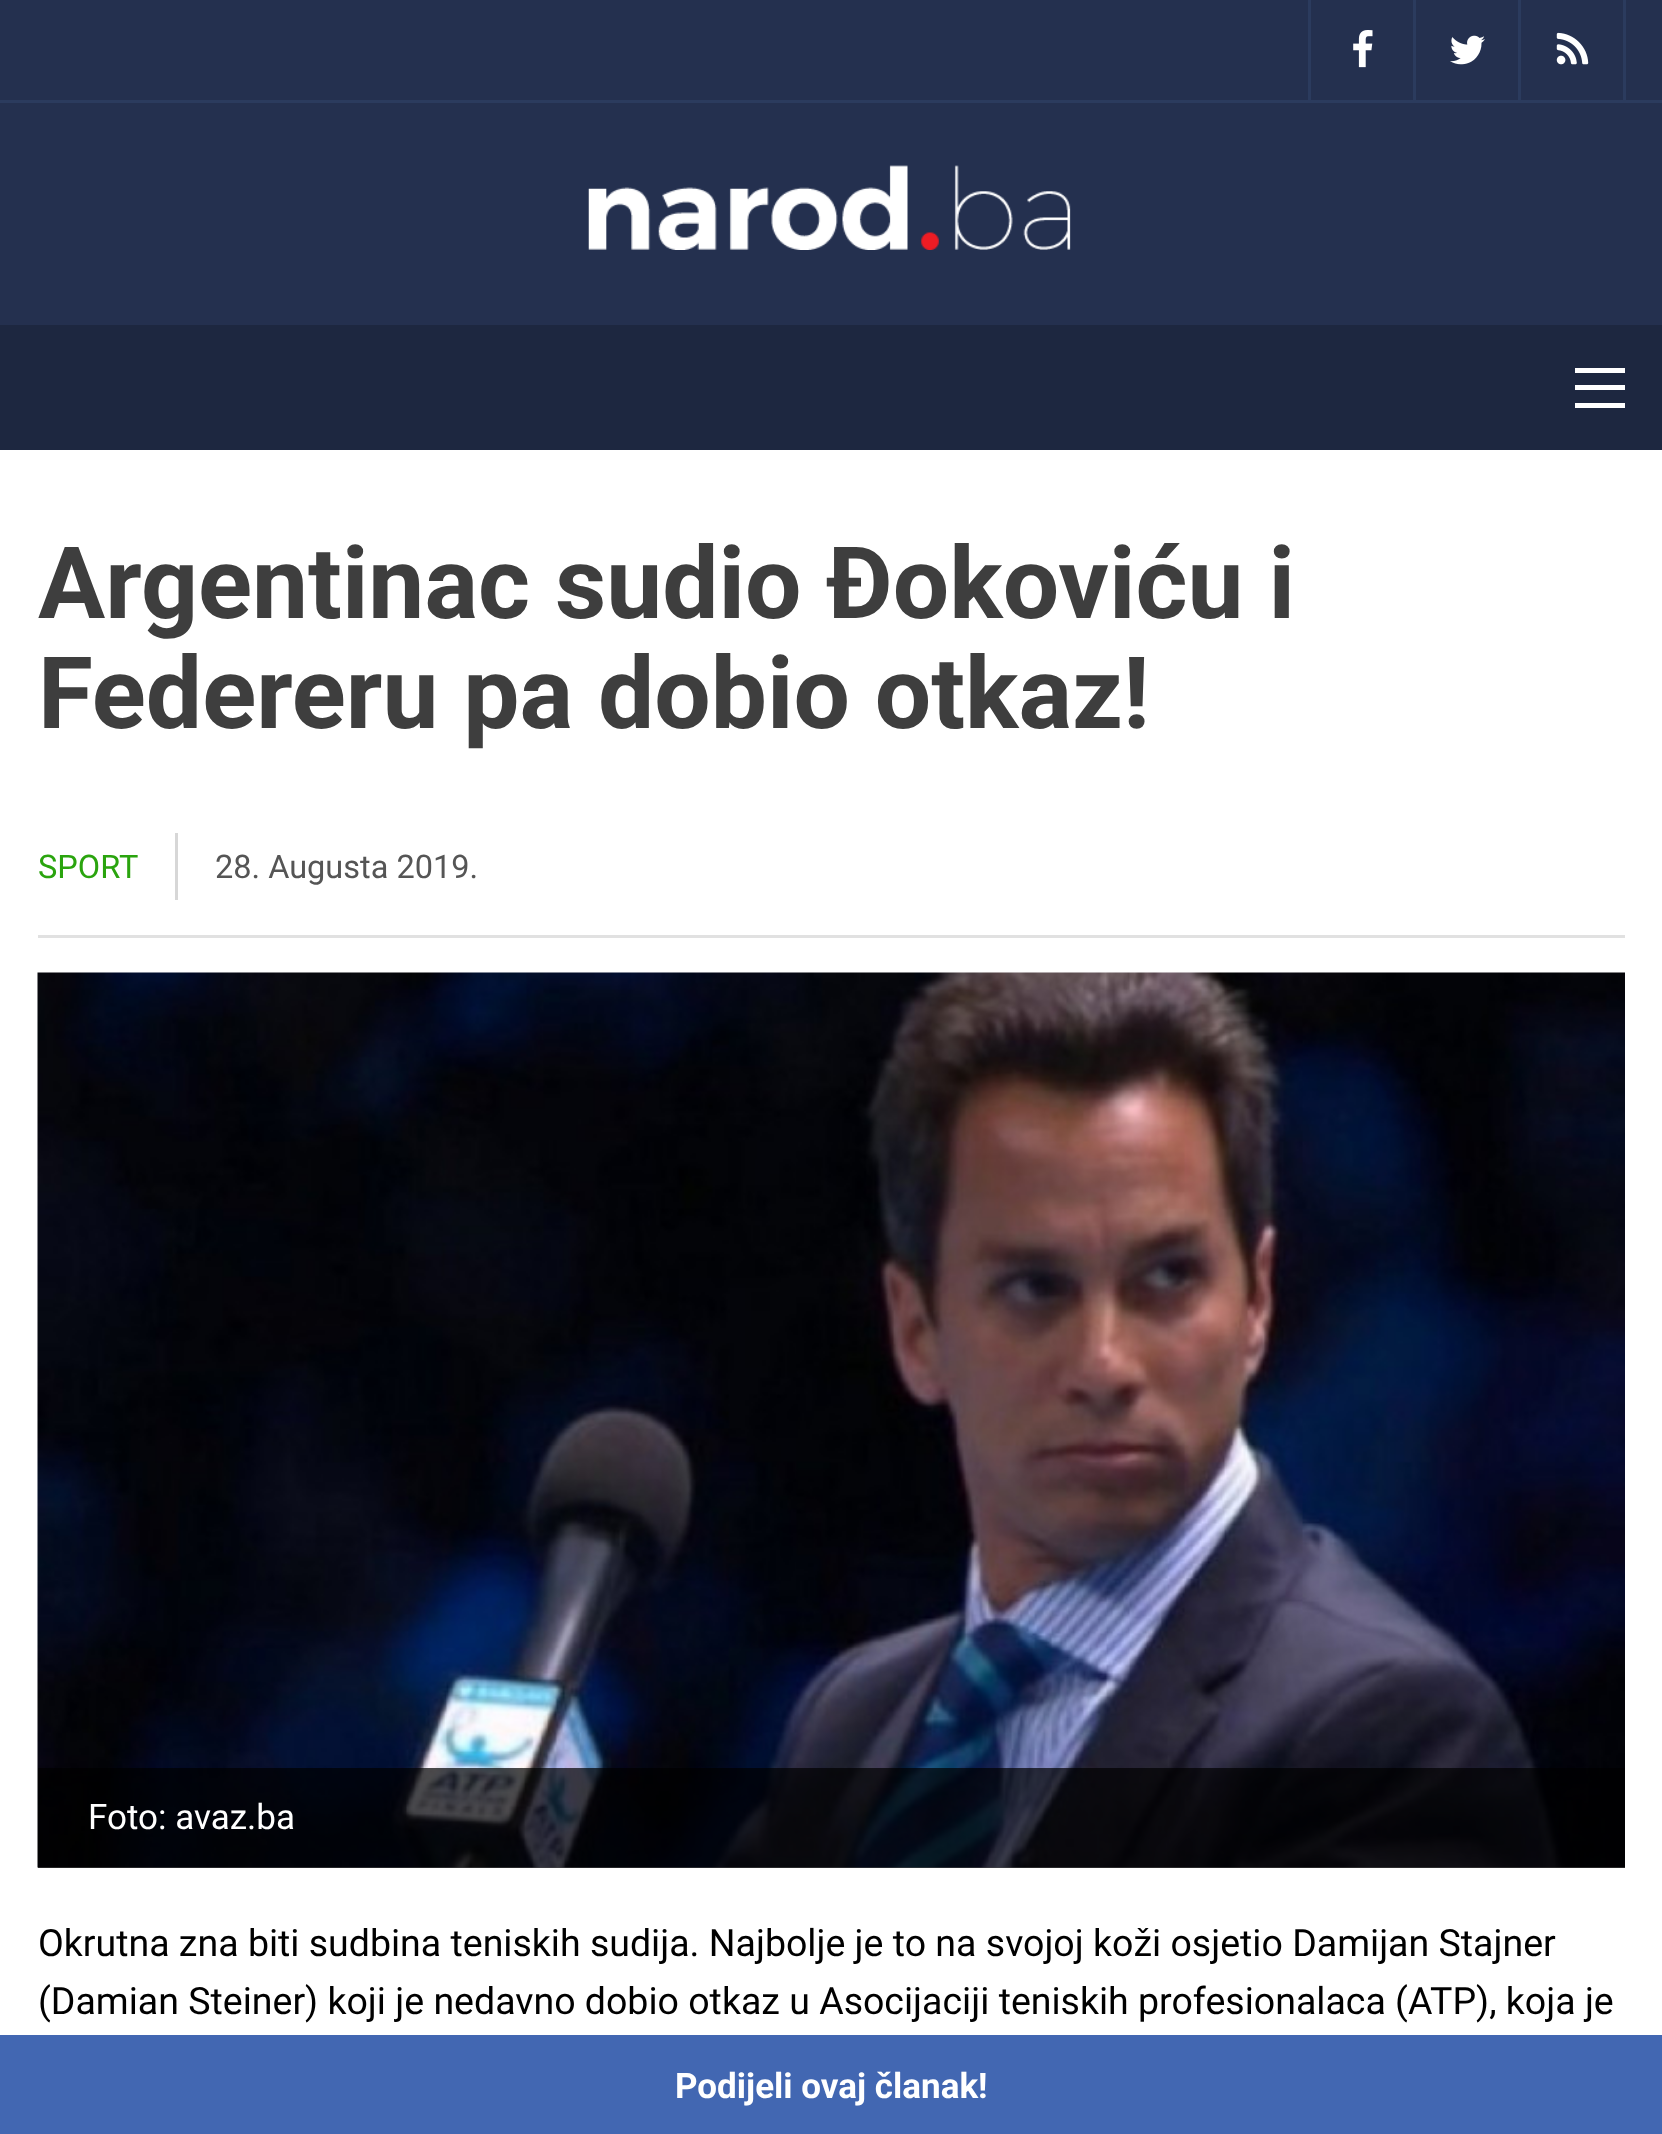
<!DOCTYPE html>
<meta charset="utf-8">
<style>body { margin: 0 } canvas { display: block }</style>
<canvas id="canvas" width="1662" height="2134"></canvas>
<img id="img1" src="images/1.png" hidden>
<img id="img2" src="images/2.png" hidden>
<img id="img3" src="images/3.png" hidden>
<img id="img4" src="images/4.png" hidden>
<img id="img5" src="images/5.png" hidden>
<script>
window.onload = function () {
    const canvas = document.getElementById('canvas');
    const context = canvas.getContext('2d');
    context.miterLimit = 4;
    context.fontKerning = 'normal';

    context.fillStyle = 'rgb(36, 48, 79)';
    context.fillRect(0, 0, 1662, 2134);
    context.fillStyle = 'rgb(43, 59, 94)';
    context.fillRect(0, 100, 1662, 3);
    context.fillRect(1308, 0, 3, 100);
    context.fillRect(1413, 0, 3, 100);
    context.drawImage(document.getElementById('img1'), 1353, 30, 20, 38);
    context.fillRect(1518, 0, 3, 100);
    context.drawImage(document.getElementById('img2'), 1450, 35, 35, 30);
    context.fillRect(1623, 0, 3, 100);
    context.drawImage(document.getElementById('img3'), 1556, 32, 33, 33);
    context.drawImage(document.getElementById('img4'), 588, 165, 483, 85);
    context.fillStyle = 'rgb(29, 39, 64)';
    context.fillRect(0, 325, 1662, 125);
    context.fillStyle = 'rgb(255, 255, 255)';
    context.fillRect(1575, 385, 50, 5);
    context.fillRect(1575, 368, 50, 5);
    context.fillRect(1575, 403, 50, 5);
    context.fillRect(0, 450, 1662, 1585);
    context.fillStyle = 'rgb(225, 225, 225)';
    context.fillRect(38, 935, 1587, 3);
    context.fillStyle = 'rgb(215, 215, 215)';
    context.fillRect(175, 833, 3, 67);
    context.drawImage(document.getElementById('img5'), 37, 972, 1588, 896);
    context.fillStyle = 'rgba(0, 0, 0, 0.7)';
    context.fillRect(38, 1768, 1587, 100);
    context.fillStyle = 'rgb(66, 103, 178)';
    context.fillRect(0, 2035, 1662, 99);
    context.font = 'bold 100px Roboto';
    context.fillStyle = 'rgb(62, 62, 62)';
    context.fillText('Argentinac sudio Đokoviću i', 38, 618);
    context.fillText('Federeru pa dobio otkaz!', 38, 728);
    context.font = '32.5px Roboto';
    context.fillStyle = 'rgb(42, 164, 14)';
    context.fillText('SPORT', 38, 878);
    context.fillStyle = 'rgb(85, 85, 85)';
    context.fillText('28. Augusta 2019.', 215, 878);
    context.font = '35px Roboto';
    context.fillStyle = 'rgb(255, 255, 255)';
    context.fillText('Foto: avaz.ba', 88, 1829);
    context.font = '37.5px Roboto';
    context.fillStyle = 'rgb(0, 0, 0)';
    context.fillText('Okrutna zna biti sudbina teniskih sudija. Najbolje je to na svojoj koži osjetio Damijan Stajner', 38, 1956);
    context.fillText('(Damian Steiner) koji je nedavno dobio otkaz u Asocijaciji teniskih profesionalaca (ATP), koja je', 38, 2014);
    context.font = 'bold 35px Roboto';
    context.fillStyle = 'rgb(255, 255, 255)';
    context.fillText('Podijeli ovaj članak!', 675, 2098);
};
</script>
